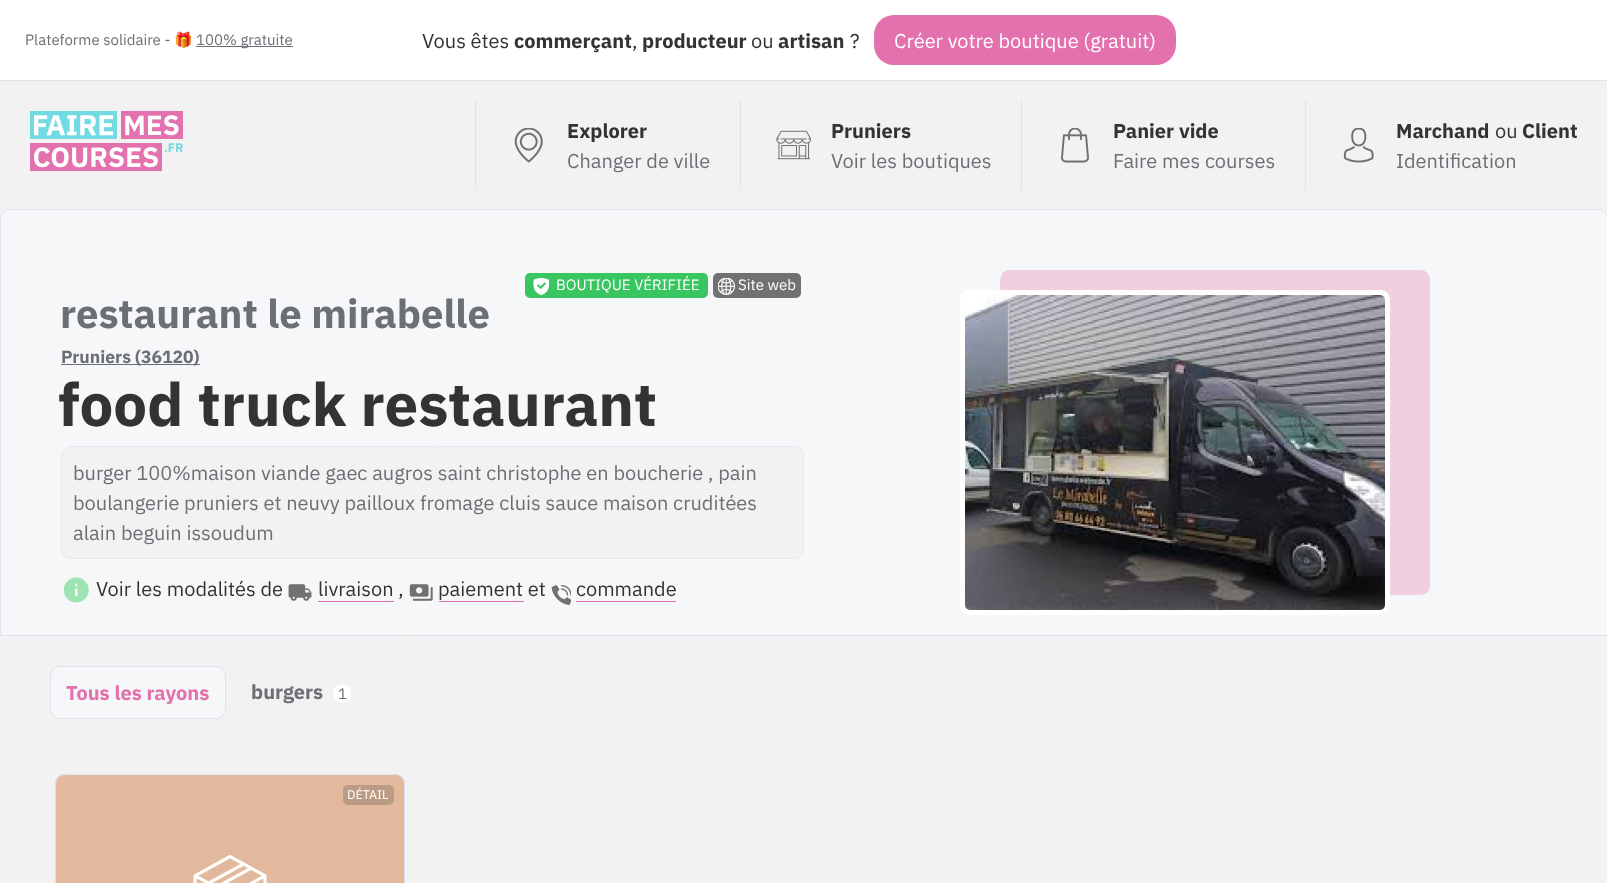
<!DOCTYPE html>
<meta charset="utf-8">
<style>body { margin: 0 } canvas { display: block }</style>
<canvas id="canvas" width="1607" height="883"></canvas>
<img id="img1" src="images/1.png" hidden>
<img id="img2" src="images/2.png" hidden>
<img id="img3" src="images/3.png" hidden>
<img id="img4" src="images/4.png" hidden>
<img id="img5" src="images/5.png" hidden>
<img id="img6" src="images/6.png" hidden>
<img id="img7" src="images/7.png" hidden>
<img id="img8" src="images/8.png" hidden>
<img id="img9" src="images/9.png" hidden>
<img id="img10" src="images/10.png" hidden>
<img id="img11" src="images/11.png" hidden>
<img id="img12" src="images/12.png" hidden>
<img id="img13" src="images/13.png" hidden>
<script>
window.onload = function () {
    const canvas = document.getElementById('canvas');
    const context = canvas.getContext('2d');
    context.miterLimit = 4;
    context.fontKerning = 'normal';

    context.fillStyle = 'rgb(242, 242, 242)';
    context.fillRect(0, 0, 1607, 883);
    context.fillStyle = 'rgb(255, 255, 255)';
    context.fillRect(0, 0, 1607, 80);
    context.fillStyle = 'rgb(224, 224, 238)';
    context.fillRect(0, 80, 1607, 1);
    context.fillStyle = 'rgb(108, 111, 117)';
    context.fillRect(196, 46, 97, 1);
    context.fillStyle = 'rgb(226, 113, 173)';
    context.beginPath();
    context.roundRect(874, 15, 302, 50, 20);
    context.fill();
    context.drawImage(document.getElementById('img1'), 30, 111, 153, 60);
    context.fillStyle = 'rgb(224, 224, 238)';
    context.fillRect(475, 100, 1, 90);
    context.drawImage(document.getElementById('img2'), 514, 128, 29, 35);
    context.fillRect(740, 100, 1, 90);
    context.drawImage(document.getElementById('img3'), 776, 130, 35, 30);
    context.fillRect(1021, 100, 1, 90);
    context.drawImage(document.getElementById('img4'), 1061, 128, 28, 35);
    context.fillRect(1305, 100, 1, 90);
    context.drawImage(document.getElementById('img5'), 1343, 128, 31, 35);
    context.fillStyle = 'rgb(246, 247, 249)';
    context.beginPath();
    context.moveTo(10, 209.5);
    context.lineTo(1598, 209.5);
    context.bezierCurveTo(1603, 209.5, 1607.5, 214, 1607.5, 219);
    context.lineTo(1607.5, 635.5);
    context.lineTo(0.5, 635.5);
    context.lineTo(0.5, 219);
    context.bezierCurveTo(0.5, 214, 5, 209.5, 10, 209.5);
    context.closePath();
    context.fill();
    context.strokeStyle = 'rgb(224, 224, 238)';
    context.stroke();
    context.fillStyle = 'rgb(57, 198, 97)';
    context.beginPath();
    context.roundRect(525, 273, 183, 25, 5);
    context.fill();
    context.drawImage(document.getElementById('img6'), 533, 278, 17, 17);
    context.fillStyle = 'rgb(112, 113, 115)';
    context.beginPath();
    context.roundRect(713, 273, 88, 25, 5);
    context.fill();
    context.drawImage(document.getElementById('img7'), 718, 278, 17, 17);
    context.fillStyle = 'rgb(108, 111, 117)';
    context.fillRect(61, 364, 139, 1);
    context.fillStyle = 'rgb(242, 242, 242)';
    context.beginPath();
    context.roundRect(61.5, 446.5, 742, 112, 9.5);
    context.fill();
    context.strokeStyle = 'rgb(232, 233, 242)';
    context.stroke();
    context.drawImage(document.getElementById('img8'), 63, 577, 26, 26);
    context.drawImage(document.getElementById('img9'), 288, 584, 24, 17);
    context.fillStyle = 'rgb(226, 113, 173)';
    context.fillRect(318, 601, 76, 1);
    context.drawImage(document.getElementById('img10'), 409, 584, 24, 17);
    context.fillRect(439, 601, 85, 1);
    context.drawImage(document.getElementById('img11'), 551, 585, 20, 20);
    context.fillRect(576, 601, 100, 1);
    context.fillStyle = 'rgb(241, 207, 223)';
    context.beginPath();
    context.moveTo(1010, 270);
    context.bezierCurveTo(999, 270, 1000, 282, 1000, 290);
    context.lineTo(1380, 290);
    context.bezierCurveTo(1386, 290, 1390, 294, 1390, 300);
    context.lineTo(1390, 595);
    context.lineTo(1420, 595);
    context.bezierCurveTo(1426, 595, 1430, 591, 1430, 585);
    context.lineTo(1430, 280);
    context.bezierCurveTo(1430, 274, 1426, 270, 1420, 270);
    context.closePath();
    context.fill();
    context.beginPath();
    context.roundRect(962.5, 292.5, 425, 320, 7.5);
    context.strokeStyle = 'rgb(255, 255, 255)';
    context.lineWidth = 5;
    context.stroke();
    context.drawImage(document.getElementById('img12'), 965, 295, 420, 315);
    context.fillStyle = 'rgb(246, 247, 249)';
    context.beginPath();
    context.roundRect(50.5, 666.5, 175, 52, 9.5);
    context.fill();
    context.strokeStyle = 'rgb(224, 224, 238)';
    context.lineWidth = 1;
    context.stroke();
    context.fillStyle = 'rgb(255, 255, 255)';
    context.beginPath();
    context.roundRect(333, 684, 18, 19, 9);
    context.fill();
    context.fillStyle = 'rgb(227, 185, 158)';
    context.beginPath();
    context.roundRect(55, 774, 350, 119, 10);
    context.fill();
    context.drawImage(document.getElementById('img13'), 193, 855, 74, 28);
    context.beginPath();
    context.roundRect(55.5, 774.5, 349, 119, 9.5);
    context.stroke();
    context.fillStyle = 'rgb(188, 155, 133)';
    context.beginPath();
    context.roundRect(343, 785, 51, 20, 5);
    context.fill();
    context.font = '15px IBM Plex Sans';
    context.fillStyle = 'rgb(108, 111, 117)';
    context.fillText('Plateforme solidaire -', 25, 45);
    context.font = '15px Noto Color Emoji';
    context.fillText('🎁', 174, 45);
    context.font = '15px IBM Plex Sans';
    context.fillText('100% gratuite', 196, 45);
    context.font = '20px IBM Plex Sans';
    context.fillStyle = 'rgb(51, 51, 51)';
    context.fillText('Vous êtes', 422, 48);
    context.font = 'bold 20px IBM Plex Sans';
    context.fillText('commerçant', 514, 48);
    context.font = '20px IBM Plex Sans';
    context.fillText(',', 632, 48);
    context.font = 'bold 20px IBM Plex Sans';
    context.fillText('producteur', 642, 48);
    context.font = '20px IBM Plex Sans';
    context.fillText('ou', 751, 48);
    context.font = 'bold 20px IBM Plex Sans';
    context.fillText('artisan', 778, 48);
    context.font = '20px IBM Plex Sans';
    context.fillText('?', 850, 48);
    context.fillStyle = 'rgb(255, 255, 255)';
    context.fillText('Créer votre boutique (gratuit)', 894, 48);
    context.font = 'bold 20px IBM Plex Sans';
    context.fillStyle = 'rgb(51, 51, 51)';
    context.fillText('Explorer', 567, 138);
    context.font = '20px IBM Plex Sans';
    context.fillStyle = 'rgb(108, 111, 117)';
    context.fillText('Changer de ville', 567, 168);
    context.font = 'bold 20px IBM Plex Sans';
    context.fillStyle = 'rgb(51, 51, 51)';
    context.fillText('Pruniers', 831, 138);
    context.font = '20px IBM Plex Sans';
    context.fillStyle = 'rgb(108, 111, 117)';
    context.fillText('Voir les boutiques', 831, 168);
    context.font = 'bold 20px IBM Plex Sans';
    context.fillStyle = 'rgb(51, 51, 51)';
    context.fillText('Panier vide', 1113, 138);
    context.font = '20px IBM Plex Sans';
    context.fillStyle = 'rgb(108, 111, 117)';
    context.fillText('Faire mes courses', 1113, 168);
    context.font = 'bold 20px IBM Plex Sans';
    context.fillStyle = 'rgb(51, 51, 51)';
    context.fillText('Marchand', 1396, 138);
    context.font = '20px IBM Plex Sans';
    context.fillText('ou', 1495, 138);
    context.font = 'bold 20px IBM Plex Sans';
    context.fillText('Client', 1522, 138);
    context.font = '20px IBM Plex Sans';
    context.fillStyle = 'rgb(108, 111, 117)';
    context.fillText('Identification', 1396, 168);
    context.font = '15px IBM Plex Sans';
    context.fillStyle = 'rgb(255, 255, 255)';
    context.fillText('BOUTIQUE VÉRIFIÉE', 556, 290);
    context.fillText('Site web', 738, 290);
    context.font = 'bold 40px IBM Plex Sans';
    context.fillStyle = 'rgb(108, 111, 117)';
    context.fillText('restaurant le mirabelle', 60, 328);
    context.font = 'bold 17.5px IBM Plex Sans';
    context.fillText('Pruniers (36120)', 61, 363);
    context.font = 'bold 60px IBM Plex Sans';
    context.fillStyle = 'rgb(51, 51, 51)';
    context.fillText('food truck restaurant', 58, 426);
    context.font = '20px IBM Plex Sans';
    context.fillStyle = 'rgb(108, 111, 117)';
    context.fillText('burger 100%maison viande gaec augros saint christophe en boucherie , pain', 73, 480);
    context.fillText('boulangerie pruniers et neuvy pailloux fromage cluis sauce maison cruditées', 73, 510);
    context.fillText('alain beguin issoudum', 73, 540);
    context.fillStyle = 'rgb(51, 51, 51)';
    context.fillText('Voir les modalités de', 96, 596);
    context.fillText('livraison ,', 318, 596);
    context.fillText('paiement et', 438, 596);
    context.fillText('commande', 576, 596);
    context.font = 'bold 20px IBM Plex Sans';
    context.fillStyle = 'rgb(226, 113, 173)';
    context.fillText('Tous les rayons', 66, 700);
    context.fillStyle = 'rgb(108, 111, 117)';
    context.fillText('burgers', 251, 699);
    context.font = '15px IBM Plex Sans';
    context.fillText('1', 338, 699);
    context.font = '12.5px IBM Plex Sans';
    context.fillStyle = 'rgb(255, 255, 255)';
    context.fillText('DÉTAIL', 347, 799);
};
</script>
